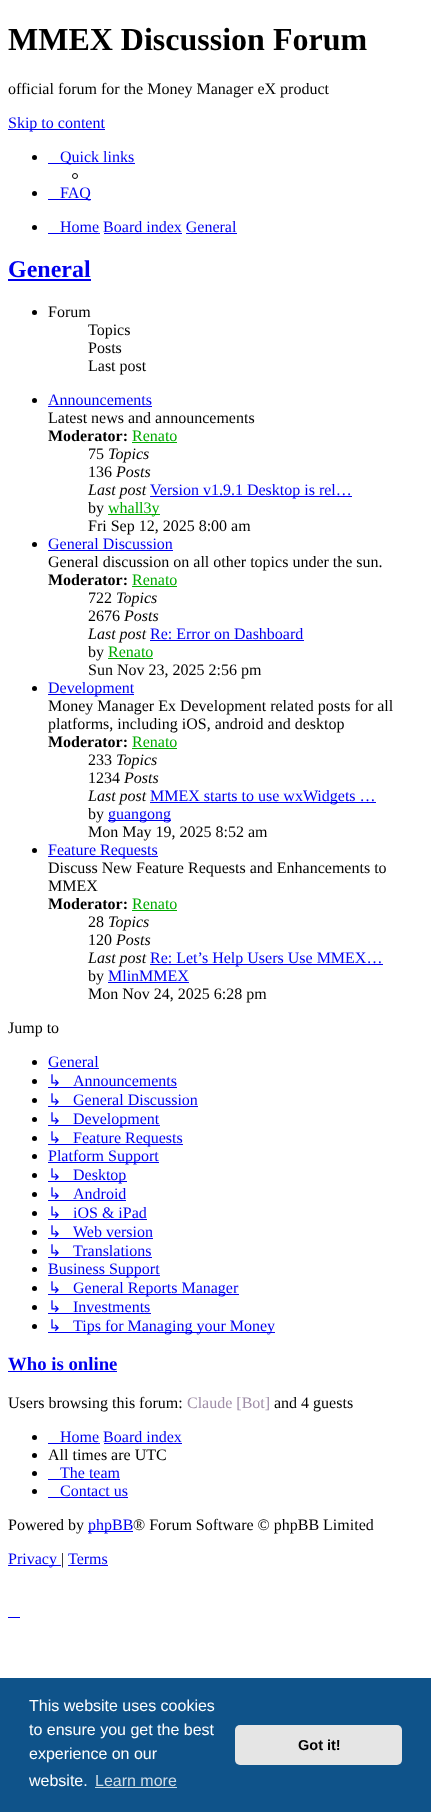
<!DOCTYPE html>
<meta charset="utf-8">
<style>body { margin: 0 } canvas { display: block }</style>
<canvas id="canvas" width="431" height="1812"></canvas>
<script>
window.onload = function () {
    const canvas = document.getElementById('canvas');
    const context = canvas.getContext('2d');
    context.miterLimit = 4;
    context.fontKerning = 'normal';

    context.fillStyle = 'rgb(255, 255, 255)';
    context.fillRect(0, 0, 431, 1812);
    context.fillStyle = 'rgb(0, 0, 238)';
    context.fillRect(8, 129, 97, 1);
    context.fillStyle = 'rgb(0, 0, 0)';
    context.beginPath();
    context.arc(34.5, 157.5, 2.5, 0, 2 * Math.PI);
    context.fill();
    context.fillStyle = 'rgb(0, 0, 238)';
    context.fillRect(48, 163, 87, 1);
    context.beginPath();
    context.arc(75, 176, 2.5, 0, 2 * Math.PI);
    context.strokeStyle = 'rgb(0, 0, 0)';
    context.stroke();
    context.fillStyle = 'rgb(0, 0, 0)';
    context.beginPath();
    context.arc(34.5, 193.5, 2.5, 0, 2 * Math.PI);
    context.fill();
    context.fillStyle = 'rgb(0, 0, 238)';
    context.fillRect(48, 199, 43, 1);
    context.fillStyle = 'rgb(0, 0, 0)';
    context.beginPath();
    context.arc(34.5, 227.5, 2.5, 0, 2 * Math.PI);
    context.fill();
    context.fillStyle = 'rgb(0, 0, 238)';
    context.fillRect(48, 233, 52, 1);
    context.fillRect(104, 233, 78, 1);
    context.fillRect(186, 233, 51, 1);
    context.fillRect(8, 279, 83, 2);
    context.fillStyle = 'rgb(0, 0, 0)';
    context.beginPath();
    context.arc(34.5, 312.5, 2.5, 0, 2 * Math.PI);
    context.fill();
    context.beginPath();
    context.arc(34.5, 400.5, 2.5, 0, 2 * Math.PI);
    context.fill();
    context.fillStyle = 'rgb(0, 0, 238)';
    context.fillRect(48, 406, 104, 1);
    context.fillStyle = 'rgb(0, 170, 0)';
    context.fillRect(132, 442, 45, 1);
    context.fillStyle = 'rgb(0, 0, 238)';
    context.fillRect(150, 496, 202, 1);
    context.fillStyle = 'rgb(0, 170, 0)';
    context.fillRect(108, 514, 52, 1);
    context.fillStyle = 'rgb(0, 0, 0)';
    context.beginPath();
    context.arc(34.5, 544.5, 2.5, 0, 2 * Math.PI);
    context.fill();
    context.fillStyle = 'rgb(0, 0, 238)';
    context.fillRect(48, 550, 125, 1);
    context.fillStyle = 'rgb(0, 170, 0)';
    context.fillRect(132, 586, 45, 1);
    context.fillStyle = 'rgb(0, 0, 238)';
    context.fillRect(150, 640, 154, 1);
    context.fillStyle = 'rgb(0, 170, 0)';
    context.fillRect(108, 658, 45, 1);
    context.fillStyle = 'rgb(0, 0, 0)';
    context.beginPath();
    context.arc(34.5, 688.5, 2.5, 0, 2 * Math.PI);
    context.fill();
    context.fillStyle = 'rgb(0, 0, 238)';
    context.fillRect(48, 694, 86, 1);
    context.fillStyle = 'rgb(0, 170, 0)';
    context.fillRect(132, 748, 45, 1);
    context.fillStyle = 'rgb(0, 0, 238)';
    context.fillRect(150, 802, 226, 1);
    context.fillRect(108, 820, 63, 1);
    context.fillStyle = 'rgb(0, 0, 0)';
    context.beginPath();
    context.arc(34.5, 850.5, 2.5, 0, 2 * Math.PI);
    context.fill();
    context.fillStyle = 'rgb(0, 0, 238)';
    context.fillRect(48, 856, 110, 1);
    context.fillStyle = 'rgb(0, 170, 0)';
    context.fillRect(132, 910, 45, 1);
    context.fillStyle = 'rgb(0, 0, 238)';
    context.fillRect(150, 964, 233, 1);
    context.fillRect(108, 982, 81, 1);
    context.fillStyle = 'rgb(0, 0, 0)';
    context.beginPath();
    context.arc(34.5, 1062.5, 2.5, 0, 2 * Math.PI);
    context.fill();
    context.fillStyle = 'rgb(0, 0, 238)';
    context.fillRect(48, 1068, 51, 1);
    context.fillStyle = 'rgb(0, 0, 0)';
    context.beginPath();
    context.arc(34.5, 1081.5, 2.5, 0, 2 * Math.PI);
    context.fill();
    context.fillStyle = 'rgb(0, 0, 238)';
    context.fillRect(48, 1087, 129, 1);
    context.fillStyle = 'rgb(0, 0, 0)';
    context.beginPath();
    context.arc(34.5, 1100.5, 2.5, 0, 2 * Math.PI);
    context.fill();
    context.fillStyle = 'rgb(0, 0, 238)';
    context.fillRect(48, 1106, 150, 1);
    context.fillStyle = 'rgb(0, 0, 0)';
    context.beginPath();
    context.arc(34.5, 1119.5, 2.5, 0, 2 * Math.PI);
    context.fill();
    context.fillStyle = 'rgb(0, 0, 238)';
    context.fillRect(48, 1125, 112, 1);
    context.fillStyle = 'rgb(0, 0, 0)';
    context.beginPath();
    context.arc(34.5, 1138.5, 2.5, 0, 2 * Math.PI);
    context.fill();
    context.fillStyle = 'rgb(0, 0, 238)';
    context.fillRect(48, 1144, 135, 1);
    context.fillStyle = 'rgb(0, 0, 0)';
    context.beginPath();
    context.arc(34.5, 1156.5, 2.5, 0, 2 * Math.PI);
    context.fill();
    context.fillStyle = 'rgb(0, 0, 238)';
    context.fillRect(48, 1162, 111, 1);
    context.fillStyle = 'rgb(0, 0, 0)';
    context.beginPath();
    context.arc(34.5, 1175.5, 2.5, 0, 2 * Math.PI);
    context.fill();
    context.fillStyle = 'rgb(0, 0, 238)';
    context.fillRect(48, 1181, 79, 1);
    context.fillStyle = 'rgb(0, 0, 0)';
    context.beginPath();
    context.arc(34.5, 1194.5, 2.5, 0, 2 * Math.PI);
    context.fill();
    context.fillStyle = 'rgb(0, 0, 238)';
    context.fillRect(48, 1200, 78, 1);
    context.fillStyle = 'rgb(0, 0, 0)';
    context.beginPath();
    context.arc(34.5, 1213.5, 2.5, 0, 2 * Math.PI);
    context.fill();
    context.fillStyle = 'rgb(0, 0, 238)';
    context.fillRect(48, 1219, 99, 1);
    context.fillStyle = 'rgb(0, 0, 0)';
    context.beginPath();
    context.arc(34.5, 1232.5, 2.5, 0, 2 * Math.PI);
    context.fill();
    context.fillStyle = 'rgb(0, 0, 238)';
    context.fillRect(48, 1238, 105, 1);
    context.fillStyle = 'rgb(0, 0, 0)';
    context.beginPath();
    context.arc(34.5, 1251.5, 2.5, 0, 2 * Math.PI);
    context.fill();
    context.fillStyle = 'rgb(0, 0, 238)';
    context.fillRect(48, 1257, 104, 1);
    context.fillStyle = 'rgb(0, 0, 0)';
    context.beginPath();
    context.arc(34.5, 1269.5, 2.5, 0, 2 * Math.PI);
    context.fill();
    context.fillStyle = 'rgb(0, 0, 238)';
    context.fillRect(48, 1275, 112, 1);
    context.fillStyle = 'rgb(0, 0, 0)';
    context.beginPath();
    context.arc(34.5, 1288.5, 2.5, 0, 2 * Math.PI);
    context.fill();
    context.fillStyle = 'rgb(0, 0, 238)';
    context.fillRect(48, 1294, 191, 1);
    context.fillStyle = 'rgb(0, 0, 0)';
    context.beginPath();
    context.arc(34.5, 1307.5, 2.5, 0, 2 * Math.PI);
    context.fill();
    context.fillStyle = 'rgb(0, 0, 238)';
    context.fillRect(48, 1313, 103, 1);
    context.fillStyle = 'rgb(0, 0, 0)';
    context.beginPath();
    context.arc(34.5, 1326.5, 2.5, 0, 2 * Math.PI);
    context.fill();
    context.fillStyle = 'rgb(0, 0, 238)';
    context.fillRect(48, 1332, 227, 1);
    context.fillRect(8, 1371, 109, 1);
    context.fillStyle = 'rgb(0, 0, 0)';
    context.beginPath();
    context.arc(34.5, 1437.5, 2.5, 0, 2 * Math.PI);
    context.fill();
    context.fillStyle = 'rgb(0, 0, 238)';
    context.fillRect(48, 1443, 52, 1);
    context.fillRect(104, 1443, 78, 1);
    context.fillStyle = 'rgb(0, 0, 0)';
    context.beginPath();
    context.arc(34.5, 1455.5, 2.5, 0, 2 * Math.PI);
    context.fill();
    context.beginPath();
    context.arc(34.5, 1473.5, 2.5, 0, 2 * Math.PI);
    context.fill();
    context.fillStyle = 'rgb(0, 0, 238)';
    context.fillRect(48, 1479, 72, 1);
    context.fillStyle = 'rgb(0, 0, 0)';
    context.beginPath();
    context.arc(34.5, 1491.5, 2.5, 0, 2 * Math.PI);
    context.fill();
    context.fillStyle = 'rgb(0, 0, 238)';
    context.fillRect(48, 1497, 80, 1);
    context.fillRect(88, 1531, 45, 1);
    context.fillRect(8, 1565, 53, 1);
    context.fillRect(68, 1565, 40, 1);
    context.fillRect(8, 1617, 12, 1);
    context.fillStyle = 'rgb(15, 83, 138)';
    context.fillRect(0, 1678, 431, 134);
    context.fillStyle = 'rgb(207, 221, 232)';
    context.fillRect(95, 1787, 82, 1);
    context.fillStyle = 'rgb(229, 229, 229)';
    context.beginPath();
    context.roundRect(235, 1725, 167, 40, 5);
    context.fill();
    context.font = 'bold 32px Liberation Serif';
    context.fillStyle = 'rgb(0, 0, 0)';
    context.fillText('MMEX Discussion Forum', 8, 50);
    context.font = '16px Liberation Serif';
    context.fillText('official forum for the Money Manager eX product', 8, 94);
    context.fillStyle = 'rgb(0, 0, 238)';
    context.fillText('Skip to content', 8, 128);
    context.fillText('Quick links', 60, 162);
    context.fillText('FAQ', 60, 198);
    context.fillText('Home Board index General', 60, 232);
    context.font = 'bold 24px Liberation Serif';
    context.fillText('General', 8, 277);
    context.font = '16px Liberation Serif';
    context.fillStyle = 'rgb(0, 0, 0)';
    context.fillText('Forum', 48, 317);
    context.fillText('Topics', 88, 335);
    context.fillText('Posts', 88, 353);
    context.fillText('Last post', 88, 371);
    context.fillStyle = 'rgb(0, 0, 238)';
    context.fillText('Announcements', 48, 405);
    context.fillStyle = 'rgb(0, 0, 0)';
    context.fillText('Latest news and announcements', 48, 423);
    context.font = 'bold 16px Liberation Serif';
    context.fillText('Moderator:', 48, 441);
    context.font = '16px Liberation Serif';
    context.fillStyle = 'rgb(0, 170, 0)';
    context.fillText('Renato', 132, 441);
    context.fillStyle = 'rgb(0, 0, 0)';
    context.fillText('75', 88, 459);
    context.font = 'italic 16px Liberation Serif';
    context.fillText('Topics', 108, 459);
    context.font = '16px Liberation Serif';
    context.fillText('136', 88, 477);
    context.font = 'italic 16px Liberation Serif';
    context.fillText('Posts', 116, 477);
    context.fillText('Last post', 88, 495);
    context.font = '16px Liberation Serif';
    context.fillStyle = 'rgb(0, 0, 238)';
    context.fillText('Version v1.9.1 Desktop is rel…', 150, 495);
    context.fillStyle = 'rgb(0, 0, 0)';
    context.fillText('by', 88, 513);
    context.fillStyle = 'rgb(0, 170, 0)';
    context.fillText('whall3y', 108, 513);
    context.fillStyle = 'rgb(0, 0, 0)';
    context.fillText('Fri Sep 12, 2025 8:00 am', 88, 531);
    context.fillStyle = 'rgb(0, 0, 238)';
    context.fillText('General Discussion', 48, 549);
    context.fillStyle = 'rgb(0, 0, 0)';
    context.fillText('General discussion on all other topics under the sun.', 48, 567);
    context.font = 'bold 16px Liberation Serif';
    context.fillText('Moderator:', 48, 585);
    context.font = '16px Liberation Serif';
    context.fillStyle = 'rgb(0, 170, 0)';
    context.fillText('Renato', 132, 585);
    context.fillStyle = 'rgb(0, 0, 0)';
    context.fillText('722', 88, 603);
    context.font = 'italic 16px Liberation Serif';
    context.fillText('Topics', 116, 603);
    context.font = '16px Liberation Serif';
    context.fillText('2676', 88, 621);
    context.font = 'italic 16px Liberation Serif';
    context.fillText('Posts', 124, 621);
    context.fillText('Last post', 88, 639);
    context.font = '16px Liberation Serif';
    context.fillStyle = 'rgb(0, 0, 238)';
    context.fillText('Re: Error on Dashboard', 150, 639);
    context.fillStyle = 'rgb(0, 0, 0)';
    context.fillText('by', 88, 657);
    context.fillStyle = 'rgb(0, 170, 0)';
    context.fillText('Renato', 108, 657);
    context.fillStyle = 'rgb(0, 0, 0)';
    context.fillText('Sun Nov 23, 2025 2:56 pm', 88, 675);
    context.fillStyle = 'rgb(0, 0, 238)';
    context.fillText('Development', 48, 693);
    context.fillStyle = 'rgb(0, 0, 0)';
    context.fillText('Money Manager Ex Development related posts for all', 48, 711);
    context.fillText('platforms, including iOS, android and desktop', 48, 729);
    context.font = 'bold 16px Liberation Serif';
    context.fillText('Moderator:', 48, 747);
    context.font = '16px Liberation Serif';
    context.fillStyle = 'rgb(0, 170, 0)';
    context.fillText('Renato', 132, 747);
    context.fillStyle = 'rgb(0, 0, 0)';
    context.fillText('233', 88, 765);
    context.font = 'italic 16px Liberation Serif';
    context.fillText('Topics', 116, 765);
    context.font = '16px Liberation Serif';
    context.fillText('1234', 88, 783);
    context.font = 'italic 16px Liberation Serif';
    context.fillText('Posts', 124, 783);
    context.fillText('Last post', 88, 801);
    context.font = '16px Liberation Serif';
    context.fillStyle = 'rgb(0, 0, 238)';
    context.fillText('MMEX starts to use wxWidgets …', 150, 801);
    context.fillStyle = 'rgb(0, 0, 0)';
    context.fillText('by', 88, 819);
    context.fillStyle = 'rgb(0, 0, 238)';
    context.fillText('guangong', 108, 819);
    context.fillStyle = 'rgb(0, 0, 0)';
    context.fillText('Mon May 19, 2025 8:52 am', 88, 837);
    context.fillStyle = 'rgb(0, 0, 238)';
    context.fillText('Feature Requests', 48, 855);
    context.fillStyle = 'rgb(0, 0, 0)';
    context.fillText('Discuss New Feature Requests and Enhancements to', 48, 873);
    context.fillText('MMEX', 48, 891);
    context.font = 'bold 16px Liberation Serif';
    context.fillText('Moderator:', 48, 909);
    context.font = '16px Liberation Serif';
    context.fillStyle = 'rgb(0, 170, 0)';
    context.fillText('Renato', 132, 909);
    context.fillStyle = 'rgb(0, 0, 0)';
    context.fillText('28', 88, 927);
    context.font = 'italic 16px Liberation Serif';
    context.fillText('Topics', 108, 927);
    context.font = '16px Liberation Serif';
    context.fillText('120', 88, 945);
    context.font = 'italic 16px Liberation Serif';
    context.fillText('Posts', 116, 945);
    context.fillText('Last post', 88, 963);
    context.font = '16px Liberation Serif';
    context.fillStyle = 'rgb(0, 0, 238)';
    context.fillText('Re: Let’s Help Users Use MMEX…', 150, 963);
    context.fillStyle = 'rgb(0, 0, 0)';
    context.fillText('by', 88, 981);
    context.fillStyle = 'rgb(0, 0, 238)';
    context.fillText('MlinMMEX', 108, 981);
    context.fillStyle = 'rgb(0, 0, 0)';
    context.fillText('Mon Nov 24, 2025 6:28 pm', 88, 999);
    context.fillText('Jump to', 8, 1033);
    context.fillStyle = 'rgb(0, 0, 238)';
    context.fillText('General', 48, 1067);
    context.font = '16px DejaVu Sans';
    context.fillText('↳', 48, 1086);
    context.font = '16px Liberation Serif';
    context.fillText('Announcements', 73, 1086);
    context.font = '16px DejaVu Sans';
    context.fillText('↳', 48, 1105);
    context.font = '16px Liberation Serif';
    context.fillText('General Discussion', 73, 1105);
    context.font = '16px DejaVu Sans';
    context.fillText('↳', 48, 1124);
    context.font = '16px Liberation Serif';
    context.fillText('Development', 73, 1124);
    context.font = '16px DejaVu Sans';
    context.fillText('↳', 48, 1143);
    context.font = '16px Liberation Serif';
    context.fillText('Feature Requests', 73, 1143);
    context.fillText('Platform Support', 48, 1161);
    context.font = '16px DejaVu Sans';
    context.fillText('↳', 48, 1180);
    context.font = '16px Liberation Serif';
    context.fillText('Desktop', 73, 1180);
    context.font = '16px DejaVu Sans';
    context.fillText('↳', 48, 1199);
    context.font = '16px Liberation Serif';
    context.fillText('Android', 73, 1199);
    context.font = '16px DejaVu Sans';
    context.fillText('↳', 48, 1218);
    context.font = '16px Liberation Serif';
    context.fillText('iOS & iPad', 73, 1218);
    context.font = '16px DejaVu Sans';
    context.fillText('↳', 48, 1237);
    context.font = '16px Liberation Serif';
    context.fillText('Web version', 73, 1237);
    context.font = '16px DejaVu Sans';
    context.fillText('↳', 48, 1256);
    context.font = '16px Liberation Serif';
    context.fillText('Translations', 73, 1256);
    context.fillText('Business Support', 48, 1274);
    context.font = '16px DejaVu Sans';
    context.fillText('↳', 48, 1293);
    context.font = '16px Liberation Serif';
    context.fillText('General Reports Manager', 73, 1293);
    context.font = '16px DejaVu Sans';
    context.fillText('↳', 48, 1312);
    context.font = '16px Liberation Serif';
    context.fillText('Investments', 73, 1312);
    context.font = '16px DejaVu Sans';
    context.fillText('↳', 48, 1331);
    context.font = '16px Liberation Serif';
    context.fillText('Tips for Managing your Money', 73, 1331);
    context.font = 'bold 18.75px Liberation Serif';
    context.fillText('Who is online', 8, 1370);
    context.font = '16px Liberation Serif';
    context.fillStyle = 'rgb(0, 0, 0)';
    context.fillText('Users browsing this forum:', 8, 1408);
    context.fillStyle = 'rgb(158, 141, 167)';
    context.fillText('Claude [Bot]', 187, 1408);
    context.fillStyle = 'rgb(0, 0, 0)';
    context.fillText('and 4 guests', 274, 1408);
    context.fillStyle = 'rgb(0, 0, 238)';
    context.fillText('Home Board index', 60, 1442);
    context.fillStyle = 'rgb(0, 0, 0)';
    context.fillText('All times are UTC', 48, 1460);
    context.fillStyle = 'rgb(0, 0, 238)';
    context.fillText('The team', 60, 1478);
    context.fillText('Contact us', 60, 1496);
    context.fillStyle = 'rgb(0, 0, 0)';
    context.fillText('Powered by', 8, 1530);
    context.fillStyle = 'rgb(0, 0, 238)';
    context.fillText('phpBB', 88, 1530);
    context.fillStyle = 'rgb(0, 0, 0)';
    context.fillText('® Forum Software © phpBB Limited', 133, 1530);
    context.fillStyle = 'rgb(0, 0, 238)';
    context.fillText('Privacy', 8, 1564);
    context.fillStyle = 'rgb(0, 0, 0)';
    context.fillText('|', 61, 1564);
    context.fillStyle = 'rgb(0, 0, 238)';
    context.fillText('Terms', 68, 1564);
    context.font = '16px Liberation Sans';
    context.fillStyle = 'rgb(255, 255, 255)';
    context.fillText('This website uses cookies', 29, 1711);
    context.fillText('to ensure you get the best', 29, 1735);
    context.fillText('experience on our', 29, 1759);
    context.fillText('website.', 29, 1786);
    context.fillStyle = 'rgb(207, 221, 232)';
    context.fillText('Learn more', 95, 1786);
    context.font = 'bold 14.5px Liberation Sans';
    context.fillStyle = 'rgb(0, 0, 0)';
    context.fillText('Got it!', 298, 1750);
};
</script>
